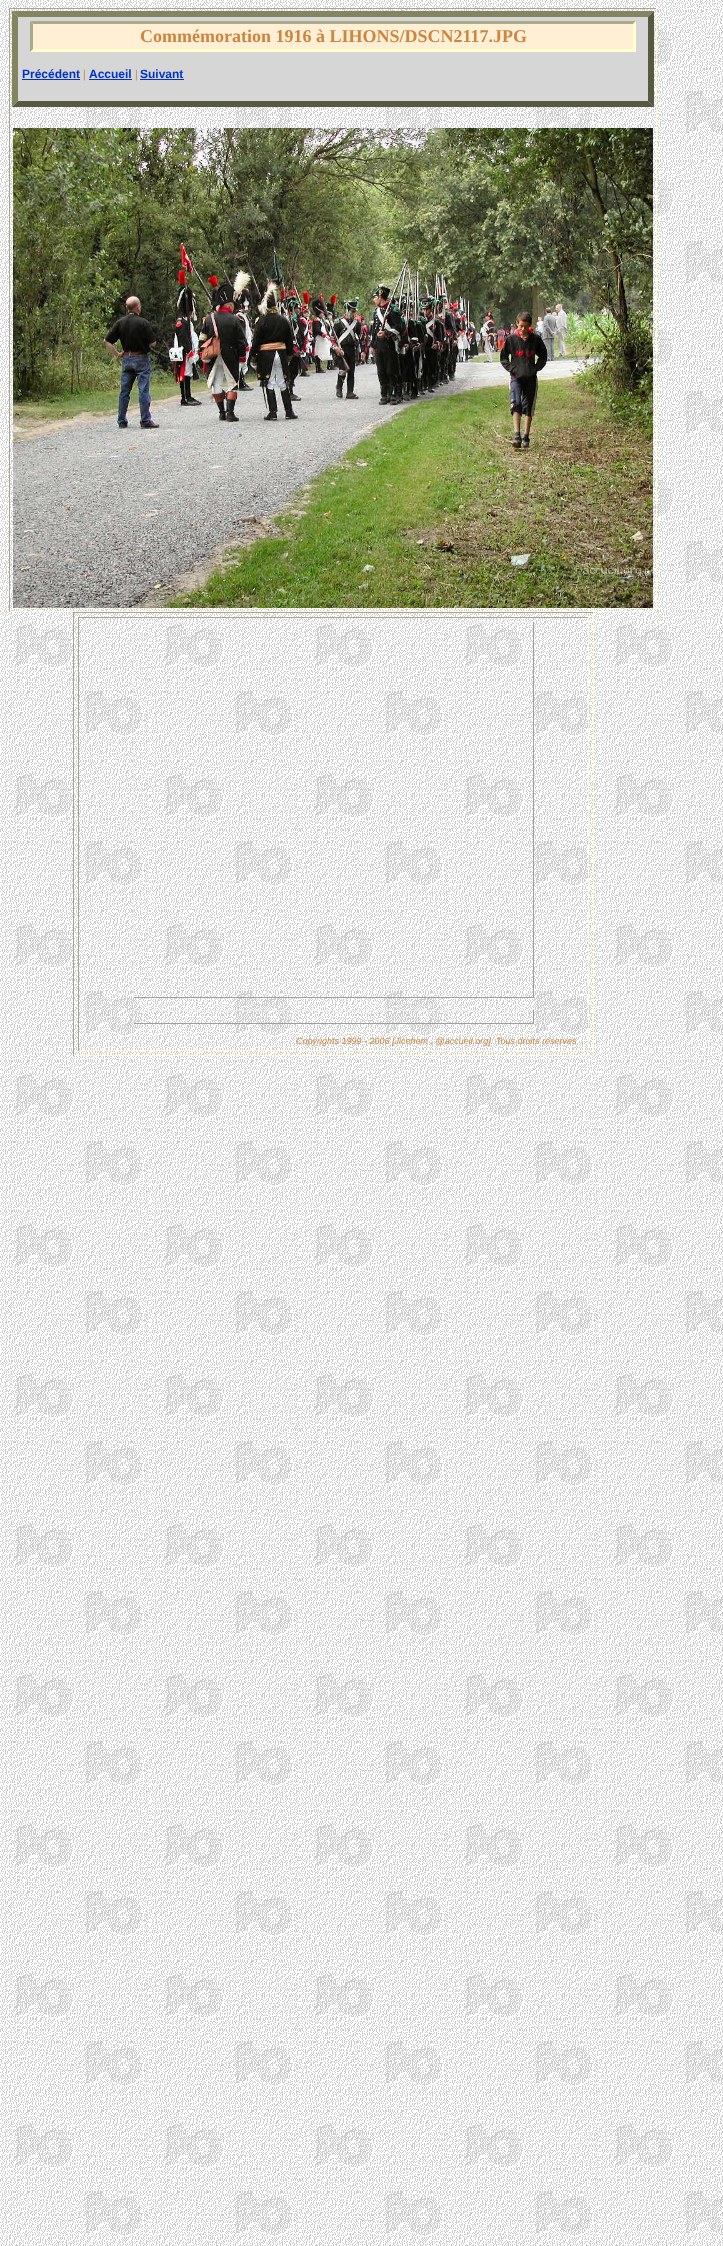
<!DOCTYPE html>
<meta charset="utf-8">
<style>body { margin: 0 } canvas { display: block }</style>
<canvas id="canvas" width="723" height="2246"></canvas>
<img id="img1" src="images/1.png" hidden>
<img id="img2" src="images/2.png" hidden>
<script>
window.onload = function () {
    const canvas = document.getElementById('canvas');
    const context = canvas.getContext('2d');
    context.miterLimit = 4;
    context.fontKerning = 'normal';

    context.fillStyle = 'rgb(255, 255, 255)';
    context.fillRect(0, 0, 723, 2246);
    context.drawImage(document.getElementById('img1'), 0, 0, 723, 2246);
    context.fillStyle = 'rgb(170, 165, 147)';
    context.fillRect(9, 8, 648, 1);
    context.fillStyle = 'rgb(255, 248, 220)';
    context.fillRect(656, 8, 1, 604);
    context.fillRect(9, 611, 648, 1);
    context.fillStyle = 'rgb(170, 165, 147)';
    context.fillRect(9, 8, 1, 604);
    context.fillStyle = 'rgb(214, 214, 214)';
    context.fillRect(12, 11, 642, 96);
    context.fillStyle = 'rgb(131, 133, 97)';
    context.beginPath();
    context.moveTo(12, 11);
    context.lineTo(654, 11);
    context.lineTo(648, 17);
    context.lineTo(18, 17);
    context.closePath();
    context.fill();
    context.fillStyle = 'rgb(87, 89, 65)';
    context.beginPath();
    context.moveTo(654, 11);
    context.lineTo(654, 107);
    context.lineTo(648, 101);
    context.lineTo(648, 17);
    context.closePath();
    context.fill();
    context.beginPath();
    context.moveTo(654, 107);
    context.lineTo(12, 107);
    context.lineTo(18, 101);
    context.lineTo(648, 101);
    context.closePath();
    context.fill();
    context.fillStyle = 'rgb(131, 133, 97)';
    context.beginPath();
    context.moveTo(12, 107);
    context.lineTo(12, 11);
    context.lineTo(18, 17);
    context.lineTo(18, 101);
    context.closePath();
    context.fill();
    context.fillStyle = 'rgb(255, 239, 213)';
    context.fillRect(30, 21, 606, 31);
    context.fillStyle = 'rgb(170, 170, 136)';
    context.beginPath();
    context.moveTo(30, 21);
    context.lineTo(636, 21);
    context.lineTo(633, 24);
    context.lineTo(33, 24);
    context.closePath();
    context.fill();
    context.fillStyle = 'rgb(255, 255, 204)';
    context.beginPath();
    context.moveTo(636, 21);
    context.lineTo(636, 52);
    context.lineTo(633, 49);
    context.lineTo(633, 24);
    context.closePath();
    context.fill();
    context.beginPath();
    context.moveTo(636, 52);
    context.lineTo(30, 52);
    context.lineTo(33, 49);
    context.lineTo(633, 49);
    context.closePath();
    context.fill();
    context.fillStyle = 'rgb(170, 170, 136)';
    context.beginPath();
    context.moveTo(30, 52);
    context.lineTo(30, 21);
    context.lineTo(33, 24);
    context.lineTo(33, 49);
    context.closePath();
    context.fill();
    context.fillStyle = 'rgb(0, 51, 204)';
    context.fillRect(22, 79, 58, 1);
    context.fillRect(89, 79, 43, 1);
    context.fillRect(140, 79, 44, 1);
    context.drawImage(document.getElementById('img2'), 13, 128, 640, 480);
    context.fillStyle = 'rgb(170, 165, 147)';
    context.fillRect(73, 612, 521, 1);
    context.fillStyle = 'rgb(255, 248, 220)';
    context.fillRect(593, 612, 1, 444);
    context.fillRect(73, 1055, 521, 1);
    context.fillStyle = 'rgb(170, 165, 147)';
    context.fillRect(73, 612, 1, 444);
    context.fillRect(78, 617, 511, 1);
    context.fillStyle = 'rgb(255, 248, 220)';
    context.fillRect(588, 617, 1, 434);
    context.fillRect(78, 1050, 511, 1);
    context.fillStyle = 'rgb(170, 165, 147)';
    context.fillRect(78, 617, 1, 434);
    context.fillStyle = 'rgb(238, 238, 238)';
    context.fillRect(133, 622, 401, 1);
    context.fillStyle = 'rgb(159, 159, 159)';
    context.fillRect(533, 622, 1, 376);
    context.fillRect(133, 997, 401, 1);
    context.fillStyle = 'rgb(238, 238, 238)';
    context.fillRect(133, 622, 1, 376);
    context.fillRect(133, 1010, 401, 1);
    context.fillStyle = 'rgb(159, 159, 159)';
    context.fillRect(533, 1010, 1, 14);
    context.fillRect(133, 1023, 401, 1);
    context.fillStyle = 'rgb(238, 238, 238)';
    context.fillRect(133, 1010, 1, 14);
    context.font = 'bold 18px Liberation Serif';
    context.fillStyle = 'rgb(205, 133, 63)';
    context.fillText('Commémoration 1916 à LIHONS/DSCN2117.JPG', 140, 42);
    context.font = 'bold 12px Liberation Sans';
    context.fillStyle = 'rgb(0, 51, 204)';
    context.fillText('Précédent', 22, 78);
    context.font = 'bold 12px Liberation Serif';
    context.fillStyle = 'rgb(205, 133, 63)';
    context.fillText('|', 83, 78);
    context.font = 'bold 12px Liberation Sans';
    context.fillStyle = 'rgb(0, 51, 204)';
    context.fillText('Accueil', 89, 78);
    context.font = 'bold 12px Liberation Serif';
    context.fillStyle = 'rgb(205, 133, 63)';
    context.fillText('|', 135, 78);
    context.font = 'bold 12px Liberation Sans';
    context.fillStyle = 'rgb(0, 51, 204)';
    context.fillText('Suivant', 140, 78);
    context.font = 'italic 9px Liberation Sans';
    context.fillStyle = 'rgb(205, 133, 63)';
    context.fillText('Copyrights 1999 - 2006 [Jicehem , @accueil.org]. Tous droits réservés  .', 296, 1044);
};
</script>
